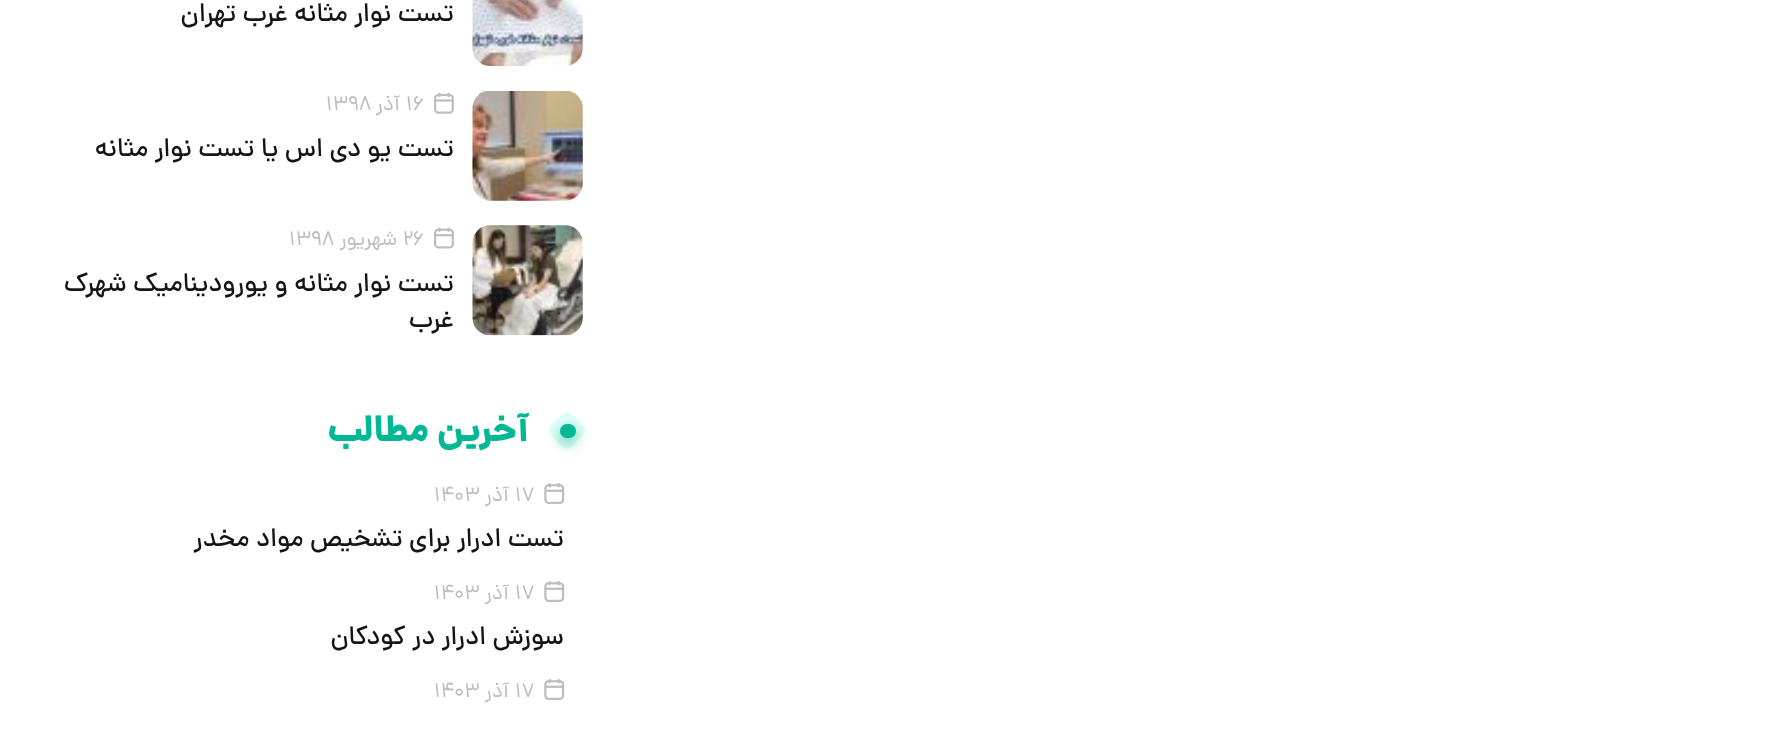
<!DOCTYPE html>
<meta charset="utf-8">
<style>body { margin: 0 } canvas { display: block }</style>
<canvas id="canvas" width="1785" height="735"></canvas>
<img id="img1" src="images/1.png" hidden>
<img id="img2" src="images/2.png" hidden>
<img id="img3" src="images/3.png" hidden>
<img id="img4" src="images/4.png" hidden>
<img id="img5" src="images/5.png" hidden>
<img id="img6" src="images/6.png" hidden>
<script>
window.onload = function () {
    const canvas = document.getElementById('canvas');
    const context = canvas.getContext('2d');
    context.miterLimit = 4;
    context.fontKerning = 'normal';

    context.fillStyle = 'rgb(255, 255, 255)';
    context.fillRect(0, 0, 1785, 735);
    context.drawImage(document.getElementById('img1'), 472, 0, 111, 66);
    context.drawImage(document.getElementById('img2'), 472, 91, 111, 110);
    context.drawImage(document.getElementById('img3'), 434, 92, 20, 22);
    context.drawImage(document.getElementById('img4'), 472, 225, 111, 111);
    context.drawImage(document.getElementById('img5'), 434, 227, 20, 22);
    context.fillStyle = 'rgb(223, 255, 249)';
    context.beginPath();
    context.moveTo(572, 414.5);
    context.lineTo(583, 425.5);
    context.bezierCurveTo(586, 428.5, 586, 432.5, 583, 435.5);
    context.lineTo(572, 446.5);
    context.bezierCurveTo(569, 449.5, 565, 449.5, 562, 446.5);
    context.lineTo(551, 435.5);
    context.bezierCurveTo(548, 432.5, 548, 428.5, 551, 425.5);
    context.lineTo(562, 414.5);
    context.bezierCurveTo(565, 411.5, 569, 411.5, 572, 414.5);
    context.closePath();
    context.fill();
    context.fillStyle = 'rgba(21, 164, 136, 0.7)';
    context.filter = 'blur(7px)';
    context.beginPath();
    context.roundRect(560, 429, 16, 14, 7);
    context.fill();
    context.filter = 'none';
    context.fillStyle = 'rgb(0, 184, 148)';
    context.beginPath();
    context.roundRect(560, 424, 16, 14, 7);
    context.fill();
    context.drawImage(document.getElementById('img6'), 544, 483, 21, 21);
    context.drawImage(document.getElementById('img6'), 544, 581, 21, 21);
    context.drawImage(document.getElementById('img6'), 544, 679, 21, 21);
    context.direction = 'rtl';
    context.font = '500 26.25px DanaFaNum';
    context.fillStyle = 'rgb(20, 20, 20)';
    context.fillText('تست نوار مثانه غرب تهران', 454, 21);
    context.direction = 'ltr';
    context.font = '21px DanaFaNum';
    context.fillStyle = 'rgb(189, 189, 189)';
    context.fillText('16', 406, 110);
    context.direction = 'rtl';
    context.fillText('آذر', 400, 110);
    context.direction = 'ltr';
    context.fillText('1398', 326, 110);
    context.direction = 'rtl';
    context.font = '500 26.25px DanaFaNum';
    context.fillStyle = 'rgb(20, 20, 20)';
    context.fillText('تست یو دی اس یا تست نوار مثانه', 454, 156);
    context.direction = 'ltr';
    context.font = '21px DanaFaNum';
    context.fillStyle = 'rgb(189, 189, 189)';
    context.fillText('26', 403, 245);
    context.direction = 'rtl';
    context.fillText('شهریور', 397, 245);
    context.direction = 'ltr';
    context.fillText('1398', 289, 245);
    context.direction = 'rtl';
    context.font = '500 26.25px DanaFaNum';
    context.fillStyle = 'rgb(20, 20, 20)';
    context.fillText('تست نوار مثانه و یورودینامیک شهرک', 454, 291);
    context.fillText('غرب', 454, 327);
    context.font = '800 36.75px DanaFaNum';
    context.fillStyle = 'rgb(0, 184, 148)';
    context.fillText('آخرین مطالب', 529, 441);
    context.direction = 'ltr';
    context.font = '21px DanaFaNum';
    context.fillStyle = 'rgb(189, 189, 189)';
    context.fillText('17', 515, 501);
    context.direction = 'rtl';
    context.fillText('آذر', 509, 501);
    context.direction = 'ltr';
    context.fillText('1403', 434, 501);
    context.direction = 'rtl';
    context.font = '500 26.25px DanaFaNum';
    context.fillStyle = 'rgb(20, 20, 20)';
    context.fillText('تست ادرار برای تشخیص مواد مخدر', 564, 546);
    context.direction = 'ltr';
    context.font = '21px DanaFaNum';
    context.fillStyle = 'rgb(189, 189, 189)';
    context.fillText('17', 515, 599);
    context.direction = 'rtl';
    context.fillText('آذر', 509, 599);
    context.direction = 'ltr';
    context.fillText('1403', 434, 599);
    context.direction = 'rtl';
    context.font = '500 26.25px DanaFaNum';
    context.fillStyle = 'rgb(20, 20, 20)';
    context.fillText('سوزش ادرار در کودکان', 564, 644);
    context.direction = 'ltr';
    context.font = '21px DanaFaNum';
    context.fillStyle = 'rgb(189, 189, 189)';
    context.fillText('17', 515, 697);
    context.direction = 'rtl';
    context.fillText('آذر', 509, 697);
    context.direction = 'ltr';
    context.fillText('1403', 434, 697);
};
</script>
